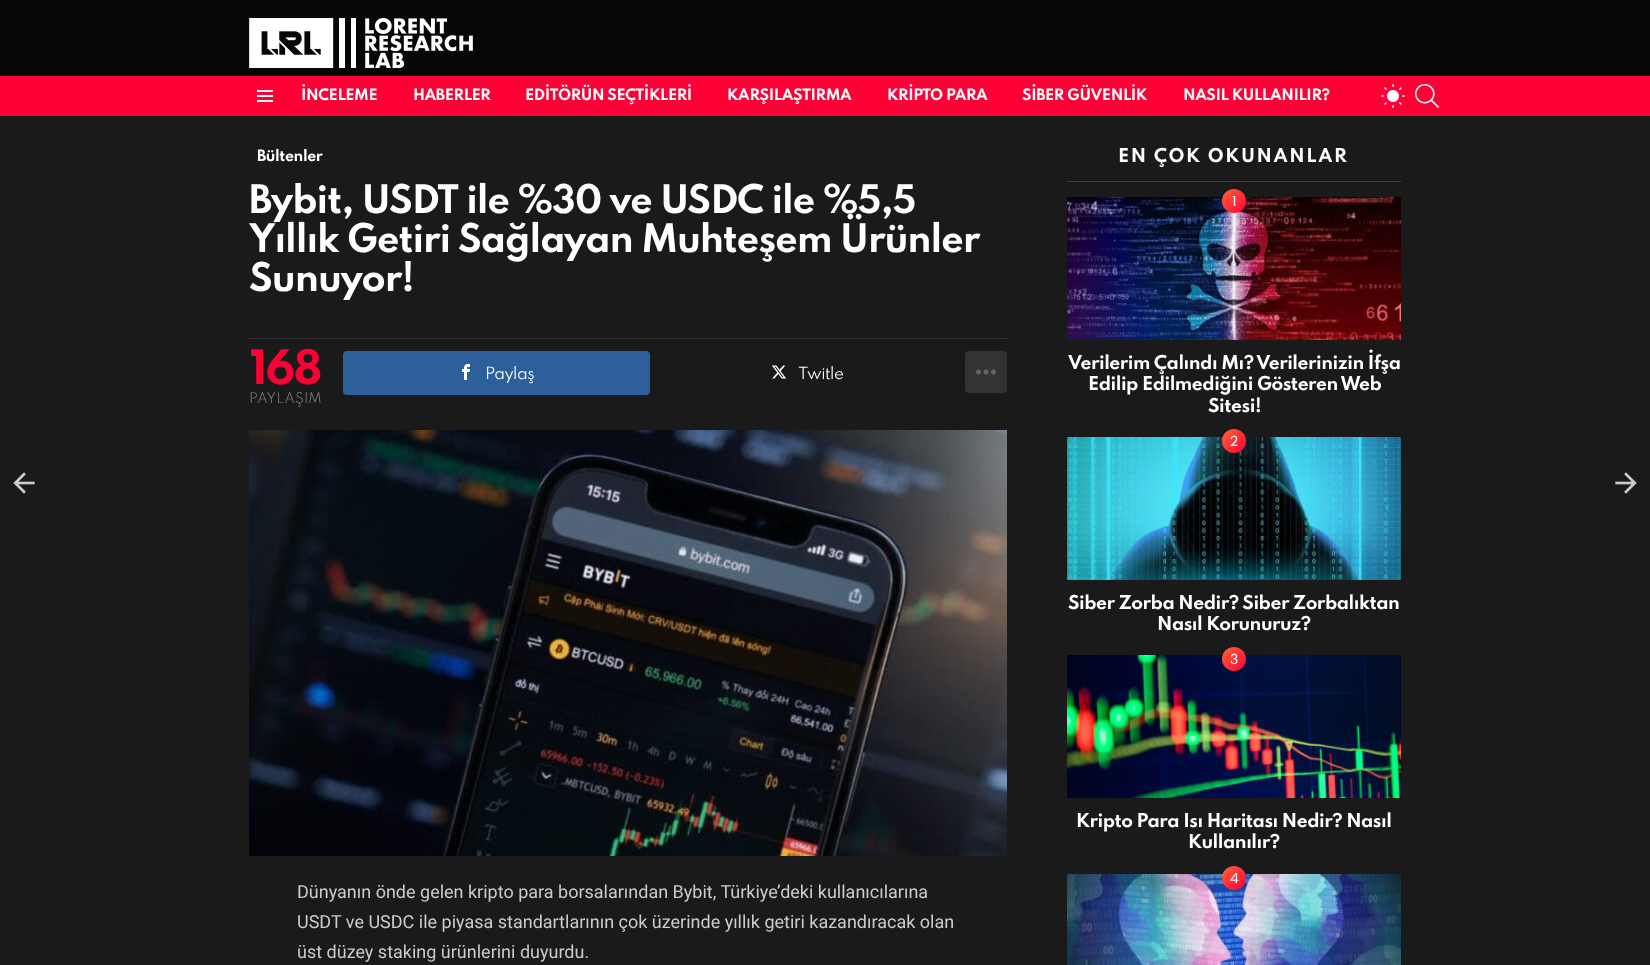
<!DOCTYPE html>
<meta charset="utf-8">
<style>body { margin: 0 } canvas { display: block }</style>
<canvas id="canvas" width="1650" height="965"></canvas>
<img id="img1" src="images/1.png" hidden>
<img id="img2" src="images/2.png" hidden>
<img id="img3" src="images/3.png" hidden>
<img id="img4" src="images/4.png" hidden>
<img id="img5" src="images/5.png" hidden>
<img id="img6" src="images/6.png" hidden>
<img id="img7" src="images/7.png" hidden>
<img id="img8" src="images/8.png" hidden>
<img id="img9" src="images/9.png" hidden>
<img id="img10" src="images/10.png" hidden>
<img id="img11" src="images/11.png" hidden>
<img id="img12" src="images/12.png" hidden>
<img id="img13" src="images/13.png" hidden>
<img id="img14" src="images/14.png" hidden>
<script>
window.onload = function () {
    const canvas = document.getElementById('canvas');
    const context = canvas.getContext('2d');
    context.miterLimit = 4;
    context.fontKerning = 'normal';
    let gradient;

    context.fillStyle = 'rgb(26, 26, 26)';
    context.fillRect(0, 0, 1650, 965);
    context.fillStyle = 'rgb(7, 7, 7)';
    context.fillRect(0, 0, 1650, 76);
    context.drawImage(document.getElementById('img1'), 249, 18, 224, 50);
    context.fillStyle = 'rgb(255, 0, 54)';
    context.fillRect(0, 76, 1650, 40);
    context.drawImage(document.getElementById('img2'), 257, 90, 16, 12);
    context.drawImage(document.getElementById('img3'), 1381, 84, 24, 24);
    context.drawImage(document.getElementById('img4'), 1415, 84, 24, 24);
    context.drawImage(document.getElementById('img5'), 13, 472, 22, 22);
    context.fillStyle = 'rgb(51, 51, 51)';
    context.fillRect(249, 338, 758, 1);
    context.fillStyle = 'rgb(45, 95, 154)';
    context.beginPath();
    context.roundRect(343, 351, 307, 44, 4);
    context.fill();
    context.drawImage(document.getElementById('img6'), 462, 364, 8, 16);
    context.drawImage(document.getElementById('img7'), 772, 365, 15, 14);
    context.fillStyle = 'rgb(51, 51, 51)';
    context.beginPath();
    context.roundRect(965, 351, 42, 42, 4);
    context.fill();
    context.drawImage(document.getElementById('img8'), 976, 369, 20, 6);
    context.drawImage(document.getElementById('img9'), 249, 430, 758, 426);
    context.drawImage(document.getElementById('img10'), 1615, 472, 22, 22);
    context.fillStyle = 'rgb(64, 64, 64)';
    context.fillRect(1067, 181, 334, 1);
    context.drawImage(document.getElementById('img11'), 1067, 197, 334, 143);
    gradient = context.createLinearGradient(1246, 213, 1222, 189);
    gradient.addColorStop(0, 'rgb(255, 0, 54)');
    gradient.addColorStop(1, 'rgb(255, 102, 54)');
    context.fillStyle = gradient;
    context.beginPath();
    context.arc(1234, 201, 12, 0, 2 * Math.PI);
    context.fill();
    context.drawImage(document.getElementById('img12'), 1067, 437, 334, 143);
    gradient = context.createLinearGradient(1246, 453, 1222, 429);
    gradient.addColorStop(0, 'rgb(255, 0, 54)');
    gradient.addColorStop(1, 'rgb(255, 102, 54)');
    context.fillStyle = gradient;
    context.beginPath();
    context.arc(1234, 441, 12, 0, 2 * Math.PI);
    context.fill();
    context.drawImage(document.getElementById('img13'), 1067, 655, 334, 143);
    gradient = context.createLinearGradient(1246, 671, 1222, 647);
    gradient.addColorStop(0, 'rgb(255, 0, 54)');
    gradient.addColorStop(1, 'rgb(255, 102, 54)');
    context.fillStyle = gradient;
    context.beginPath();
    context.arc(1234, 659, 12, 0, 2 * Math.PI);
    context.fill();
    context.drawImage(document.getElementById('img14'), 1067, 874, 334, 91);
    gradient = context.createLinearGradient(1246, 890, 1222, 866);
    gradient.addColorStop(0, 'rgb(255, 0, 54)');
    gradient.addColorStop(1, 'rgb(255, 102, 54)');
    context.fillStyle = gradient;
    context.beginPath();
    context.arc(1234, 878, 12, 0, 2 * Math.PI);
    context.fill();
    context.letterSpacing = '-0.4px';
    context.font = 'bold 14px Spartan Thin';
    context.fillStyle = 'rgb(255, 255, 255)';
    context.fillText('İNCELEME', 301, 100);
    context.fillText('HABERLER', 413, 100);
    context.fillText('EDİTÖRÜN SEÇTİKLERİ', 525, 100);
    context.fillText('KARŞILAŞTIRMA', 727, 100);
    context.fillText('KRİPTO PARA', 887, 100);
    context.fillText('SİBER GÜVENLİK', 1022, 100);
    context.fillText('NASIL KULLANILIR?', 1183, 100);
    context.fillText('Bültenler', 257, 161);
    context.letterSpacing = '-1.05px';
    context.font = 'bold 35px Spartan Thin';
    context.fillText('Bybit, USDT ile %30 ve USDC ile %5,5', 249, 213);
    context.fillText('Yıllık Getiri Sağlayan Muhteşem Ürünler', 249, 252);
    context.fillText('Sunuyor!', 249, 291);
    context.letterSpacing = '-2px';
    context.font = 'bold 42px Spartan Thin';
    context.fillStyle = 'rgb(255, 0, 54)';
    context.fillText('168', 250, 384);
    context.letterSpacing = '0px';
    context.font = '300 13px Spartan Thin';
    context.fillStyle = 'rgb(138, 140, 142)';
    context.fillText('PAYLAŞIM', 249, 403);
    context.letterSpacing = '-0.5px';
    context.font = '15px Spartan Thin';
    context.fillStyle = 'rgb(255, 255, 255)';
    context.fillText('Paylaş', 485, 379);
    context.fillText('Twitle', 798, 379);
    context.letterSpacing = '0px';
    context.font = '18px Roboto';
    context.fillStyle = 'rgb(204, 204, 204)';
    context.fillText('Dünyanın önde gelen kripto para borsalarından Bybit, Türkiye’deki kullanıcılarına', 297, 898);
    context.fillText('USDT ve USDC ile piyasa standartlarının çok üzerinde yıllık getiri kazandıracak olan', 297, 928);
    context.fillText('üst düzey staking ürünlerini duyurdu.', 297, 958);
    context.letterSpacing = '1.6px';
    context.font = 'bold 17px Spartan Thin';
    context.fillStyle = 'rgb(255, 255, 255)';
    context.fillText('EN ÇOK OKUNANLAR', 1118, 162);
    context.letterSpacing = '0px';
    context.font = '14px Poppins';
    context.fillText('1', 1232, 206);
    context.letterSpacing = '-0.5px';
    context.font = 'bold 17px Spartan Thin';
    context.fillText('Verilerim Çalındı Mı? Verilerinizin İfşa', 1068, 369);
    context.fillText('Edilip Edilmediğini Gösteren Web', 1088, 390);
    context.fillText('Sitesi!', 1208, 412);
    context.letterSpacing = '0px';
    context.font = '14px Poppins';
    context.fillText('2', 1230, 446);
    context.letterSpacing = '-0.5px';
    context.font = 'bold 17px Spartan Thin';
    context.fillText('Siber Zorba Nedir? Siber Zorbalıktan', 1068, 609);
    context.fillText('Nasıl Korunuruz?', 1157, 630);
    context.letterSpacing = '0px';
    context.font = '14px Poppins';
    context.fillText('3', 1230, 664);
    context.letterSpacing = '-0.5px';
    context.font = 'bold 17px Spartan Thin';
    context.fillText('Kripto Para Isı Haritası Nedir? Nasıl', 1076, 827);
    context.fillText('Kullanılır?', 1188, 848);
    context.letterSpacing = '0px';
    context.font = '14px Poppins';
    context.fillText('4', 1230, 883);
};
</script>
